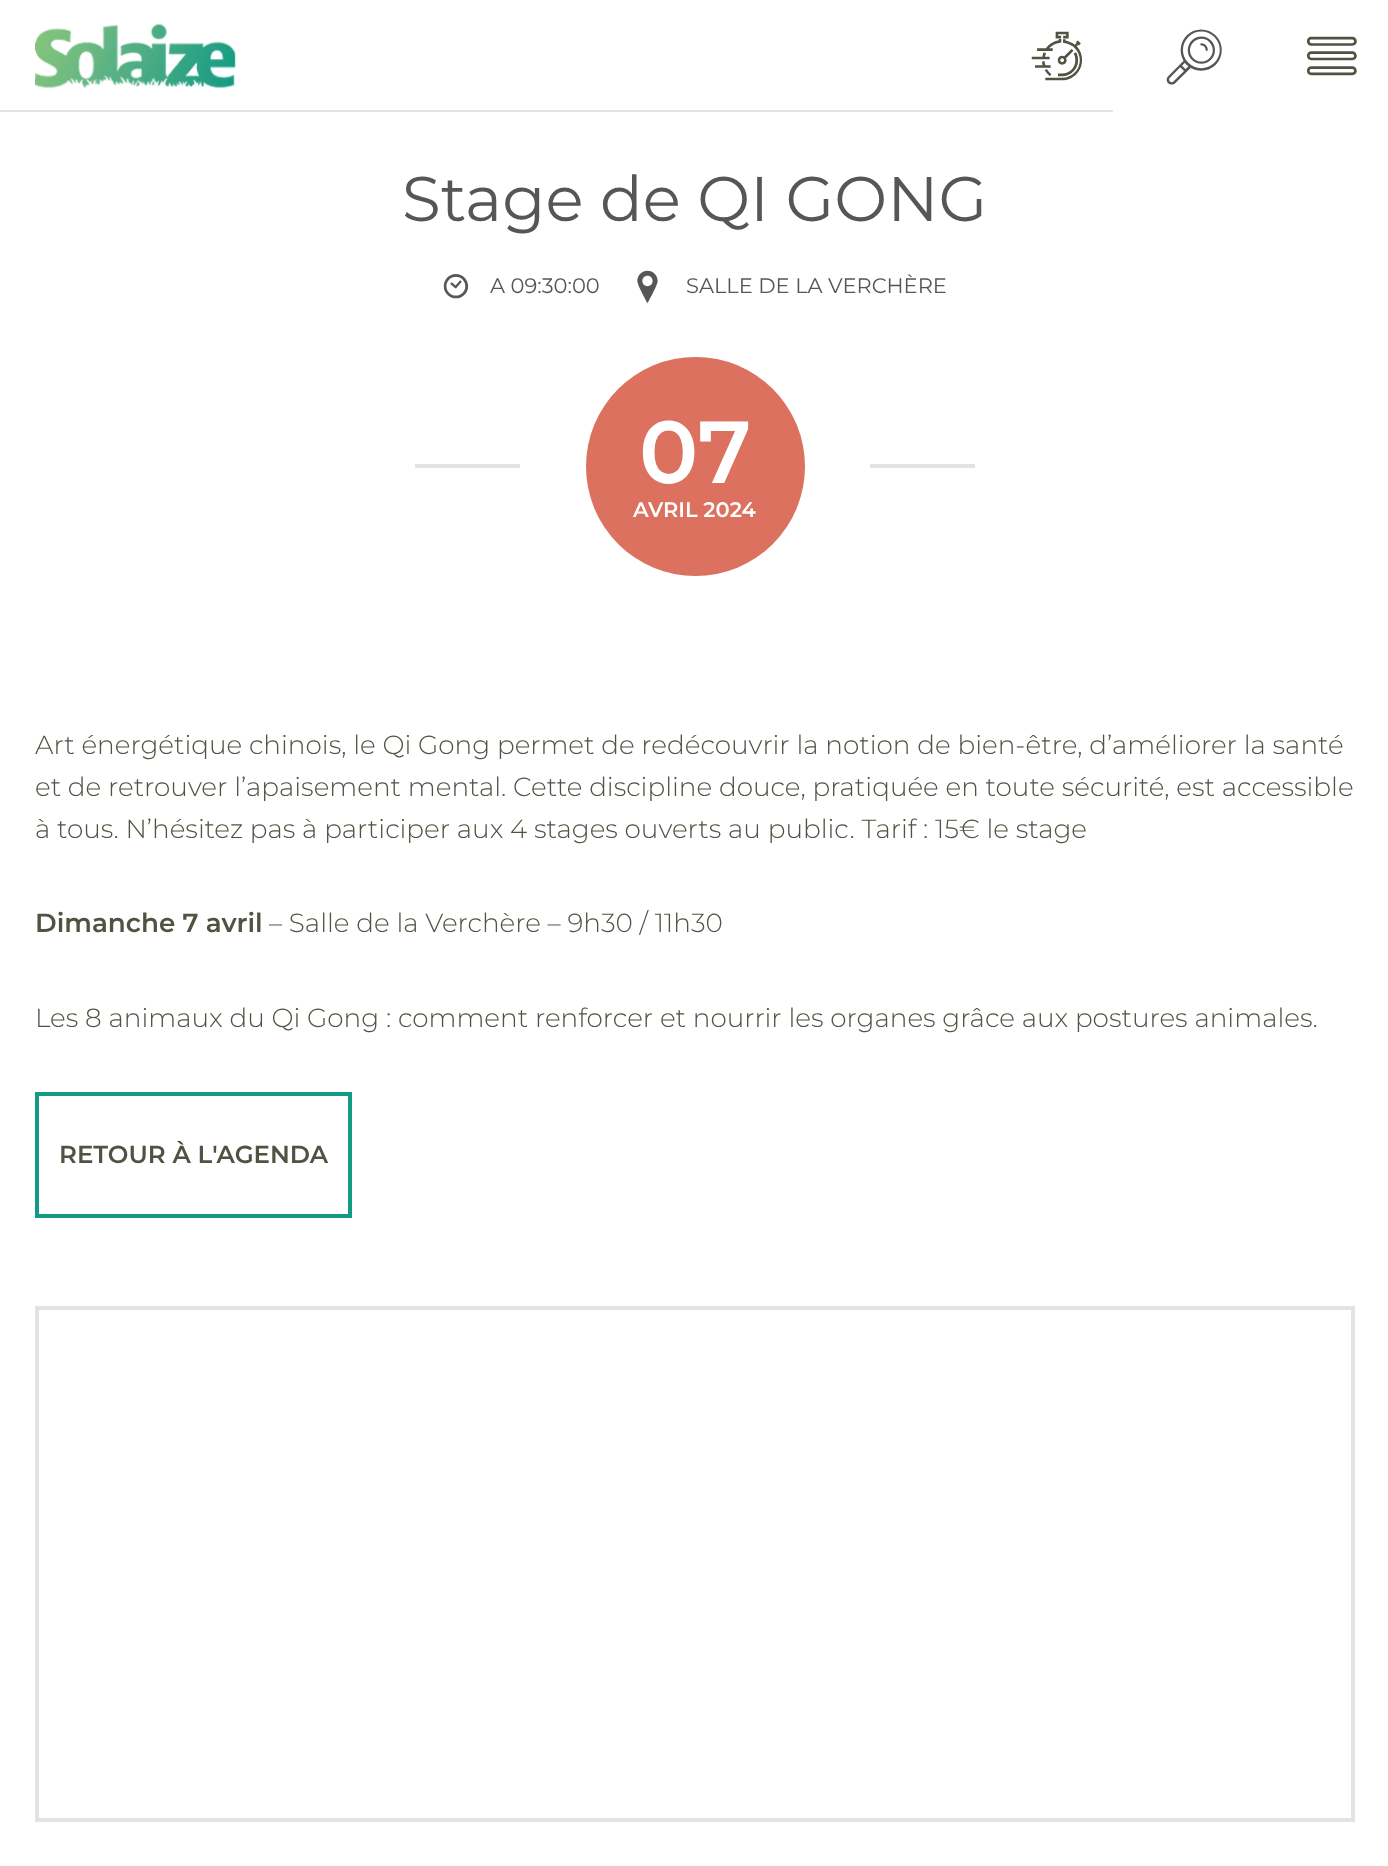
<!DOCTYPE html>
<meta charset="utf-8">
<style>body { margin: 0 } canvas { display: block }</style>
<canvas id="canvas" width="1388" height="1866"></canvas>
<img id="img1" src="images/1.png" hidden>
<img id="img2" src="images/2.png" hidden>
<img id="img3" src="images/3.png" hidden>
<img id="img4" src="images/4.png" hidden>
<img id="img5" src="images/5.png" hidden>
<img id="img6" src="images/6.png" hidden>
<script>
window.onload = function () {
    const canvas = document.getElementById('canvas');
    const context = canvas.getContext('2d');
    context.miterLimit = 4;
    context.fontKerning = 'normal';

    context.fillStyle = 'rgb(255, 255, 255)';
    context.fillRect(0, 0, 1388, 1866);
    context.drawImage(document.getElementById('img1'), 35, 24, 201, 64);
    context.drawImage(document.getElementById('img2'), 1031, 31, 51, 50);
    context.fillStyle = 'rgb(227, 227, 227)';
    context.fillRect(0, 110, 1113, 2);
    context.drawImage(document.getElementById('img3'), 1166, 29, 56, 56);
    context.drawImage(document.getElementById('img4'), 1306, 36, 51, 40);
    context.drawImage(document.getElementById('img5'), 443, 274, 26, 25);
    context.drawImage(document.getElementById('img6'), 637, 270, 21, 34);
    context.fillRect(415, 464, 105, 4);
    context.fillStyle = 'rgb(219, 113, 94)';
    context.beginPath();
    context.arc(695.5, 466.5, 109.5, 0, 2 * Math.PI);
    context.fill();
    context.fillStyle = 'rgb(227, 227, 227)';
    context.fillRect(870, 464, 105, 4);
    context.strokeStyle = 'rgb(18, 155, 131)';
    context.lineWidth = 4;
    context.strokeRect(37, 1094, 313, 122);
    context.strokeStyle = 'rgb(227, 227, 227)';
    context.strokeRect(37, 1308, 1316, 512);
    context.font = '63px Montserrat';
    context.fillStyle = 'rgb(86, 86, 86)';
    context.fillText('Stage de QI GONG', 402, 221);
    context.font = '21px Montserrat';
    context.fillText('A 09:30:00', 490, 293);
    context.fillText('SALLE DE LA VERCHÈRE', 686, 293);
    context.font = '600 88px Montserrat';
    context.fillStyle = 'rgb(255, 255, 255)';
    context.fillText('07', 639, 483);
    context.font = '600 21px Montserrat';
    context.fillText('AVRIL 2024', 633, 517);
    context.font = '300 26.25px Montserrat';
    context.fillStyle = 'rgb(78, 83, 66)';
    context.fillText('Art énergétique chinois, le Qi Gong permet de redécouvrir la notion de bien-être, d’améliorer la santé', 35, 754);
    context.fillText('et de retrouver l’apaisement mental. Cette discipline douce, pratiquée en toute sécurité, est accessible', 35, 796);
    context.fillText('à tous. N’hésitez pas à participer aux 4 stages ouverts au public. Tarif : 15€ le stage', 35, 838);
    context.font = '600 26.25px Montserrat';
    context.fillText('Dimanche 7 avril', 35, 932);
    context.font = '300 26.25px Montserrat';
    context.fillText('– Salle de la Verchère – 9h30 / 11h30', 269, 932);
    context.fillText('Les 8 animaux du Qi Gong : comment renforcer et nourrir les organes grâce aux postures animales.', 35, 1027);
    context.font = '600 24.5px Montserrat';
    context.fillText('RETOUR À L\'AGENDA', 59, 1163);
};
</script>
